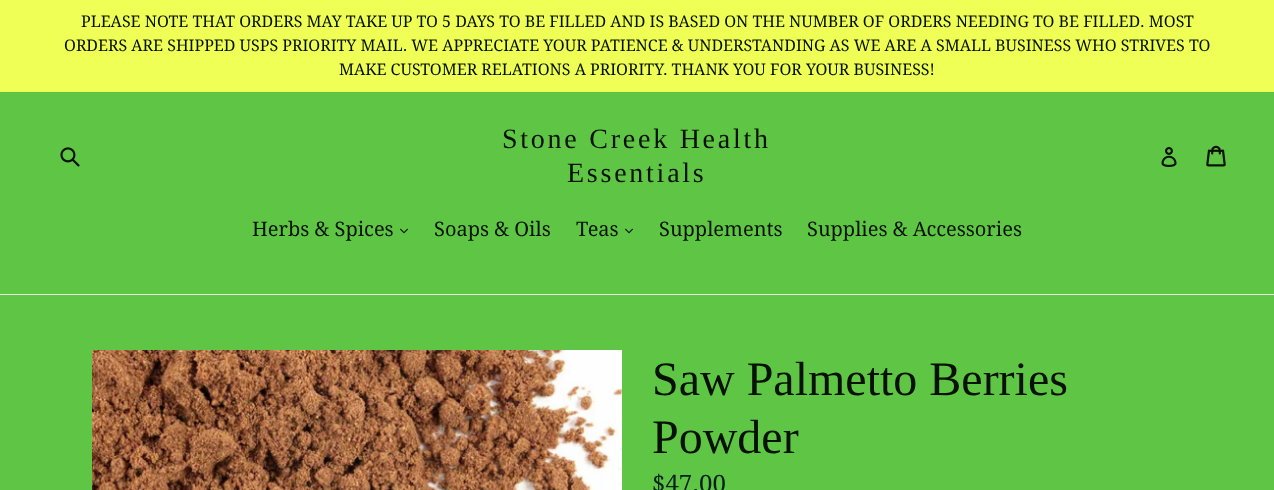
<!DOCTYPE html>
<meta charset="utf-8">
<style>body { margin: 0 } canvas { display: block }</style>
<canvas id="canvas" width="1274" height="490"></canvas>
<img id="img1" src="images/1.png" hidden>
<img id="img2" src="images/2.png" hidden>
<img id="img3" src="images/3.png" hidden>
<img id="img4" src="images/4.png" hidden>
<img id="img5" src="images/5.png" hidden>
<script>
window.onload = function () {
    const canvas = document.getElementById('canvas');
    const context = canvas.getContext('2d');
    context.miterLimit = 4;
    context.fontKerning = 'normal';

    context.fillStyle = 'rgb(94, 197, 69)';
    context.fillRect(0, 0, 1274, 490);
    context.fillStyle = 'rgb(240, 255, 85)';
    context.fillRect(0, 0, 1274, 92);
    context.drawImage(document.getElementById('img1'), 60, 147, 20, 20);
    context.drawImage(document.getElementById('img2'), 1161, 147, 16, 20);
    context.drawImage(document.getElementById('img3'), 1206, 145, 20, 22);
    context.fillStyle = 'rgb(232, 233, 235)';
    context.fillRect(0, 294, 1274, 1);
    context.drawImage(document.getElementById('img4'), 400, 228, 8, 6);
    context.drawImage(document.getElementById('img4'), 625, 228, 8, 6);
    context.drawImage(document.getElementById('img5'), 92, 350, 530, 140);
    context.font = '16px Droid Serif';
    context.fillStyle = 'rgb(6, 17, 1)';
    context.fillText('PLEASE NOTE THAT ORDERS MAY TAKE UP TO 5 DAYS TO BE FILLED AND IS BASED ON THE NUMBER OF ORDERS NEEDING TO BE FILLED. MOST', 81, 27);
    context.fillText('ORDERS ARE SHIPPED USPS PRIORITY MAIL. WE APPRECIATE YOUR PATIENCE & UNDERSTANDING AS WE ARE A SMALL BUSINESS WHO STRIVES TO', 64, 51);
    context.fillText('MAKE CUSTOMER RELATIONS A PRIORITY. THANK YOU FOR YOUR BUSINESS!', 339, 75);
    context.letterSpacing = '2.75px';
    context.font = '28px Liberation Serif';
    context.fillText('Stone Creek Health', 502, 148);
    context.fillText('Essentials', 567, 182);
    context.letterSpacing = '0px';
    context.font = '20px Droid Serif';
    context.fillText('Herbs & Spices', 252, 236);
    context.fillText('Soaps & Oils', 434, 236);
    context.fillText('Teas', 576, 236);
    context.fillText('Supplements', 659, 236);
    context.fillText('Supplies & Accessories', 807, 236);
    context.font = '48px Liberation Serif';
    context.fillText('Saw Palmetto Berries', 652, 395);
    context.fillText('Powder', 652, 453);
    context.font = '24px Droid Serif';
    context.fillStyle = 'rgb(5, 32, 26)';
    context.fillText('$47.00', 652, 492);
};
</script>
